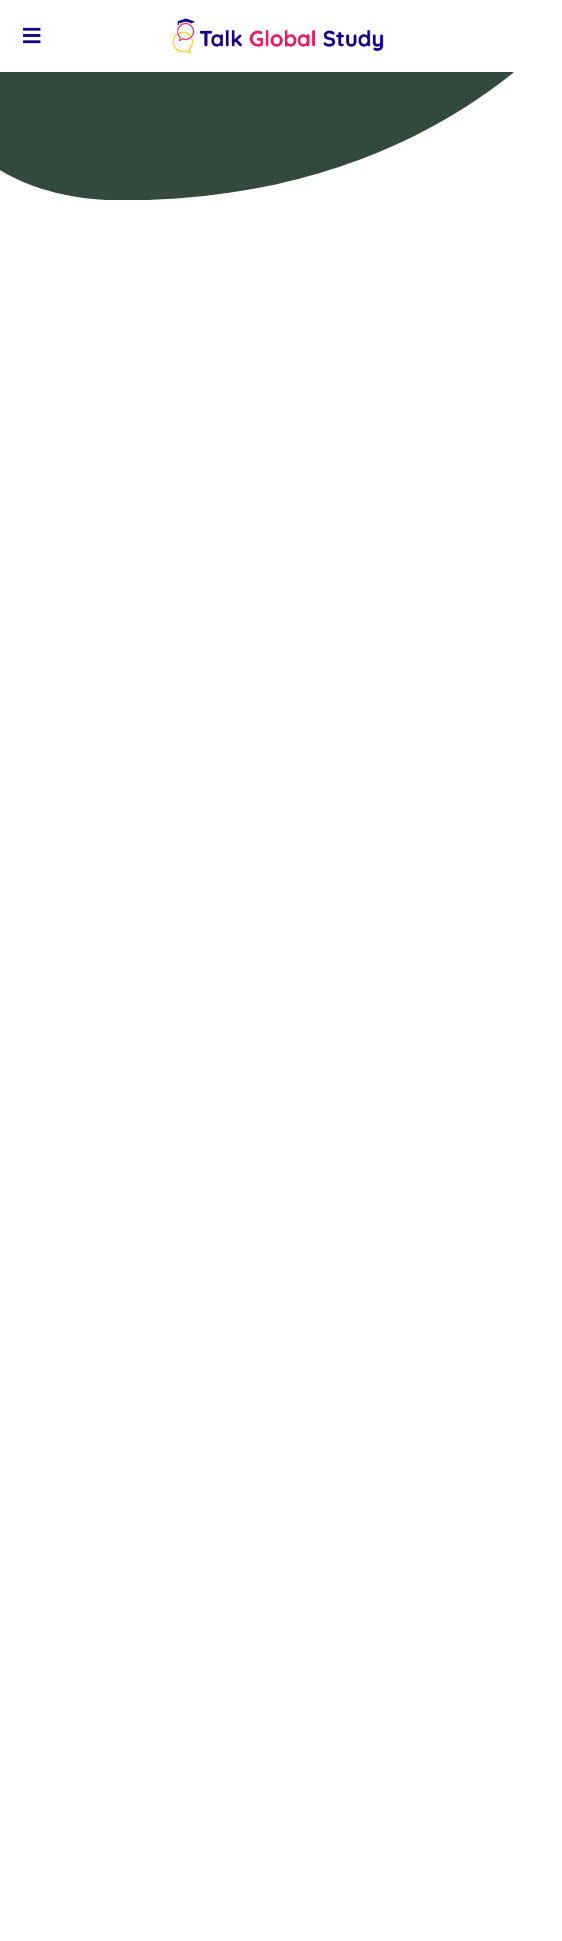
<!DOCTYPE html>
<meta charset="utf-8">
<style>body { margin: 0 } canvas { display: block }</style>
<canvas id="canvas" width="562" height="1941"></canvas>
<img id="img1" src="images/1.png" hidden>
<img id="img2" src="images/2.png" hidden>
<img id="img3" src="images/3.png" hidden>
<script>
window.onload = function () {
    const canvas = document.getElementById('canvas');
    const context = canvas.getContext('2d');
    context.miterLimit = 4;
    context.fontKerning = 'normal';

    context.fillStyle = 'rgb(255, 255, 255)';
    context.fillRect(0, 0, 562, 1941);
    context.drawImage(document.getElementById('img1'), 23, 27, 18, 17);
    context.drawImage(document.getElementById('img2'), 172, 18, 212, 36);
    context.drawImage(document.getElementById('img3'), 0, 72, 514, 128);
};
</script>
